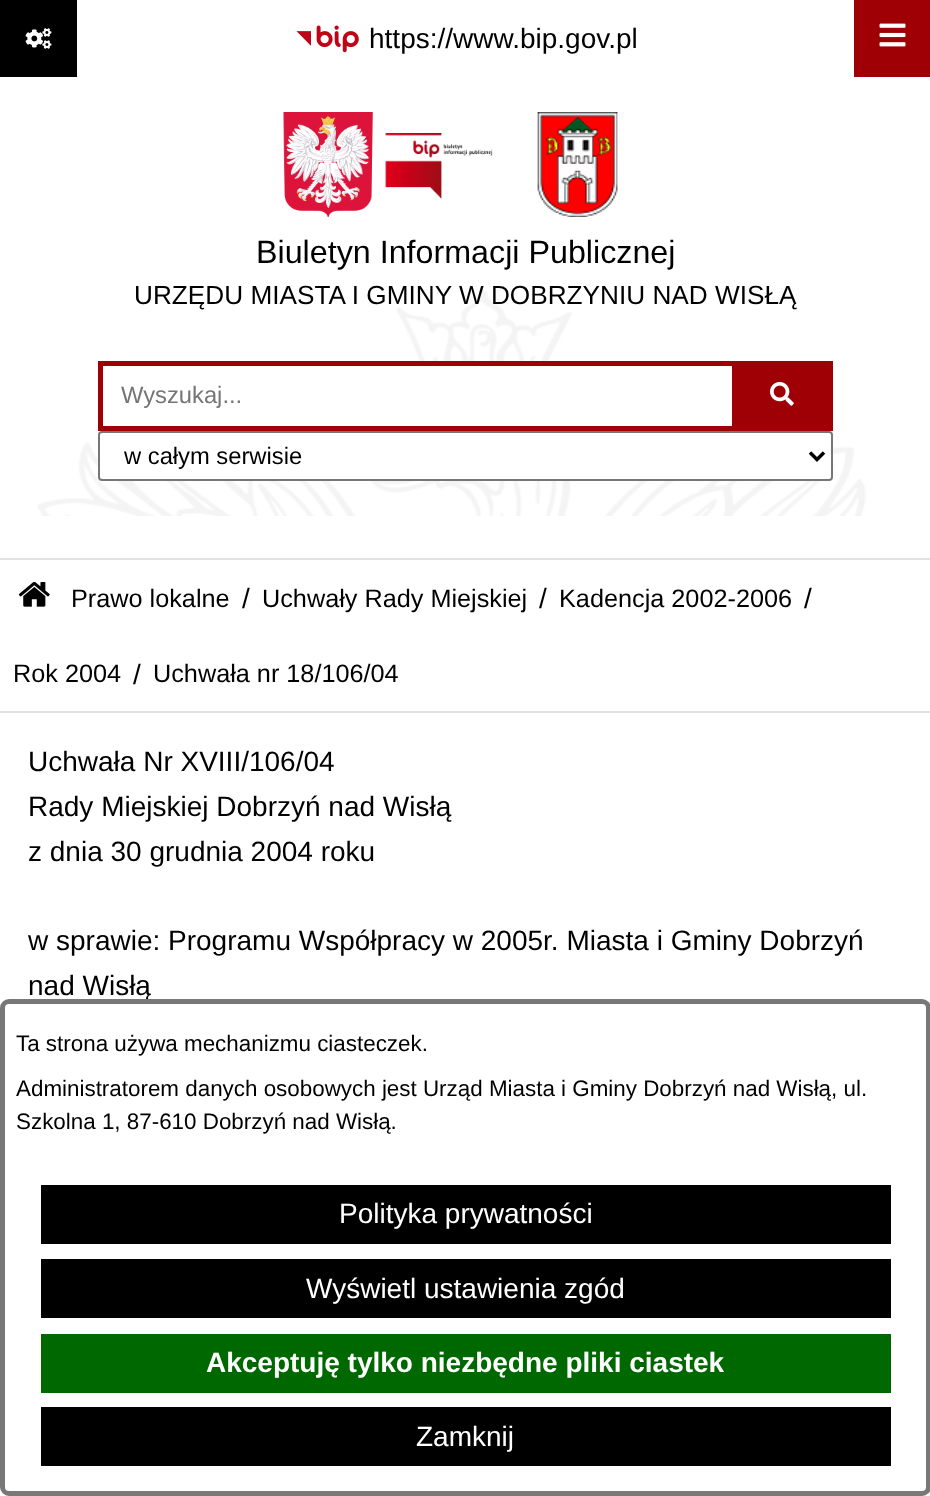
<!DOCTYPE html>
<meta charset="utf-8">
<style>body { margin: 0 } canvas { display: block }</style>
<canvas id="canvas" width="930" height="1496"></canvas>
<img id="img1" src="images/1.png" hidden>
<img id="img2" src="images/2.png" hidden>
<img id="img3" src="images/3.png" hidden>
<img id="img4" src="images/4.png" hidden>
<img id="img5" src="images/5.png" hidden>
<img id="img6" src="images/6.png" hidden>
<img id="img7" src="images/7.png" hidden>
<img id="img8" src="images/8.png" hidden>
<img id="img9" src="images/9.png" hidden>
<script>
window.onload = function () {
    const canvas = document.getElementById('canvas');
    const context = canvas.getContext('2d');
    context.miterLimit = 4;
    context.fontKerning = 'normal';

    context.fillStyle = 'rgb(255, 255, 255)';
    context.fillRect(0, 0, 930, 1496);
    context.fillStyle = 'rgb(225, 225, 225)';
    context.fillRect(0, 558, 930, 2);
    context.fillStyle = 'rgb(0, 0, 0)';
    context.fillRect(0, 0, 77, 77);
    context.drawImage(document.getElementById('img1'), 25, 28, 27, 21);
    context.drawImage(document.getElementById('img2'), 37, 290, 829, 226);
    context.drawImage(document.getElementById('img3'), 296, 25, 63, 28);
    context.drawImage(document.getElementById('img4'), 283, 112, 90, 105);
    context.drawImage(document.getElementById('img5'), 385, 133, 108, 66);
    context.drawImage(document.getElementById('img6'), 537, 112, 81, 105);
    context.fillStyle = 'rgb(255, 255, 255)';
    context.fillRect(103, 366, 468, 60);
    context.strokeStyle = 'rgb(158, 0, 5)';
    context.lineWidth = 5;
    context.strokeRect(100.5, 363.5, 634, 65);
    context.fillStyle = 'rgb(158, 0, 5)';
    context.fillRect(737, 361, 96, 70);
    context.drawImage(document.getElementById('img7'), 770, 381, 24, 25);
    context.fillStyle = 'rgb(255, 255, 255)';
    context.beginPath();
    context.roundRect(99, 432, 733, 48, 3);
    context.fill();
    context.strokeStyle = 'rgb(118, 118, 118)';
    context.lineWidth = 2;
    context.stroke();
    context.beginPath();
    context.moveTo(810, 452.5);
    context.lineTo(817, 459.5);
    context.lineTo(824, 452.5);
    context.strokeStyle = 'rgb(0, 0, 0)';
    context.lineWidth = 3.5;
    context.stroke();
    context.fillStyle = 'rgb(158, 0, 5)';
    context.fillRect(854, 0, 76, 77);
    context.drawImage(document.getElementById('img8'), 879, 23, 27, 24);
    context.fillStyle = 'rgb(225, 225, 225)';
    context.fillRect(0, 711, 930, 2);
    context.drawImage(document.getElementById('img9'), 18, 582, 32, 25);
    context.font = '28px Liberation Sans';
    context.fillStyle = 'rgb(0, 0, 0)';
    context.fillText('https://www.bip.gov.pl', 369, 48);
    context.font = '32.25px Liberation Sans';
    context.fillText('Biuletyn Informacji Publicznej', 256, 263);
    context.font = '26.2px Liberation Sans';
    context.fillText('URZĘDU MIASTA I GMINY W DOBRZYNIU NAD WISŁĄ', 134, 304);
    context.font = '23.75px Liberation Sans';
    context.fillStyle = 'rgb(117, 117, 117)';
    context.fillText('Wyszukaj...', 121, 403);
    context.fillStyle = 'rgb(0, 0, 0)';
    context.fillText('w całym serwisie', 124, 464);
    context.font = '25.25px Liberation Sans';
    context.fillText('Prawo lokalne', 71, 607);
    context.font = '28px Liberation Sans';
    context.fillText('/', 242, 608);
    context.font = '25.25px Liberation Sans';
    context.fillText('Uchwały Rady Miejskiej', 262, 607);
    context.font = '28px Liberation Sans';
    context.fillText('/', 539, 608);
    context.font = '25.25px Liberation Sans';
    context.fillText('Kadencja 2002-2006', 559, 607);
    context.font = '28px Liberation Sans';
    context.fillText('/', 804, 608);
    context.font = '25.25px Liberation Sans';
    context.fillText('Rok 2004', 13, 682);
    context.font = '28px Liberation Sans';
    context.fillText('/', 133, 684);
    context.font = '25.25px Liberation Sans';
    context.fillText('Uchwała nr 18/106/04', 153, 682);
    context.font = '28px Liberation Sans';
    context.fillText('Uchwała Nr XVIII/106/04', 28, 771);
    context.fillText('Rady Miejskiej Dobrzyń nad Wisłą', 28, 816);
    context.fillText('z dnia 30 grudnia 2004 roku', 28, 861);
    context.fillText('w sprawie: Programu Współpracy w 2005r. Miasta i Gminy Dobrzyń', 28, 950);
    context.fillText('nad Wisłą', 28, 995);
    context.fillStyle = 'rgb(255, 255, 255)';
    context.beginPath();
    context.roundRect(2.5, 1001.5, 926, 492, 6.5);
    context.fill();
    context.strokeStyle = 'rgb(120, 120, 120)';
    context.lineWidth = 5;
    context.stroke();
    context.font = '22.4px Liberation Sans';
    context.fillStyle = 'rgb(0, 0, 0)';
    context.fillText('Ta strona używa mechanizmu ciasteczek.', 16, 1051);
    context.fillText('Administratorem danych osobowych jest Urząd Miasta i Gminy Dobrzyń nad Wisłą, ul.', 16, 1096);
    context.fillText('Szkolna 1, 87-610 Dobrzyń nad Wisłą.', 16, 1129);
    context.fillRect(41, 1185, 850, 59);
    context.font = '28px Liberation Sans';
    context.fillStyle = 'rgb(255, 255, 255)';
    context.fillText('Polityka prywatności', 339, 1223);
    context.fillStyle = 'rgb(0, 0, 0)';
    context.fillRect(41, 1259, 850, 59);
    context.fillStyle = 'rgb(255, 255, 255)';
    context.fillText('Wyświetl ustawienia zgód', 306, 1298);
    context.fillStyle = 'rgb(0, 104, 0)';
    context.fillRect(41, 1334, 850, 59);
    context.font = 'bold 28px Liberation Sans';
    context.fillStyle = 'rgb(255, 255, 255)';
    context.fillText('Akceptuję tylko niezbędne pliki ciastek', 206, 1372);
    context.fillStyle = 'rgb(0, 0, 0)';
    context.fillRect(41, 1407, 850, 59);
    context.font = '28px Liberation Sans';
    context.fillStyle = 'rgb(255, 255, 255)';
    context.fillText('Zamknij', 416, 1446);
};
</script>
